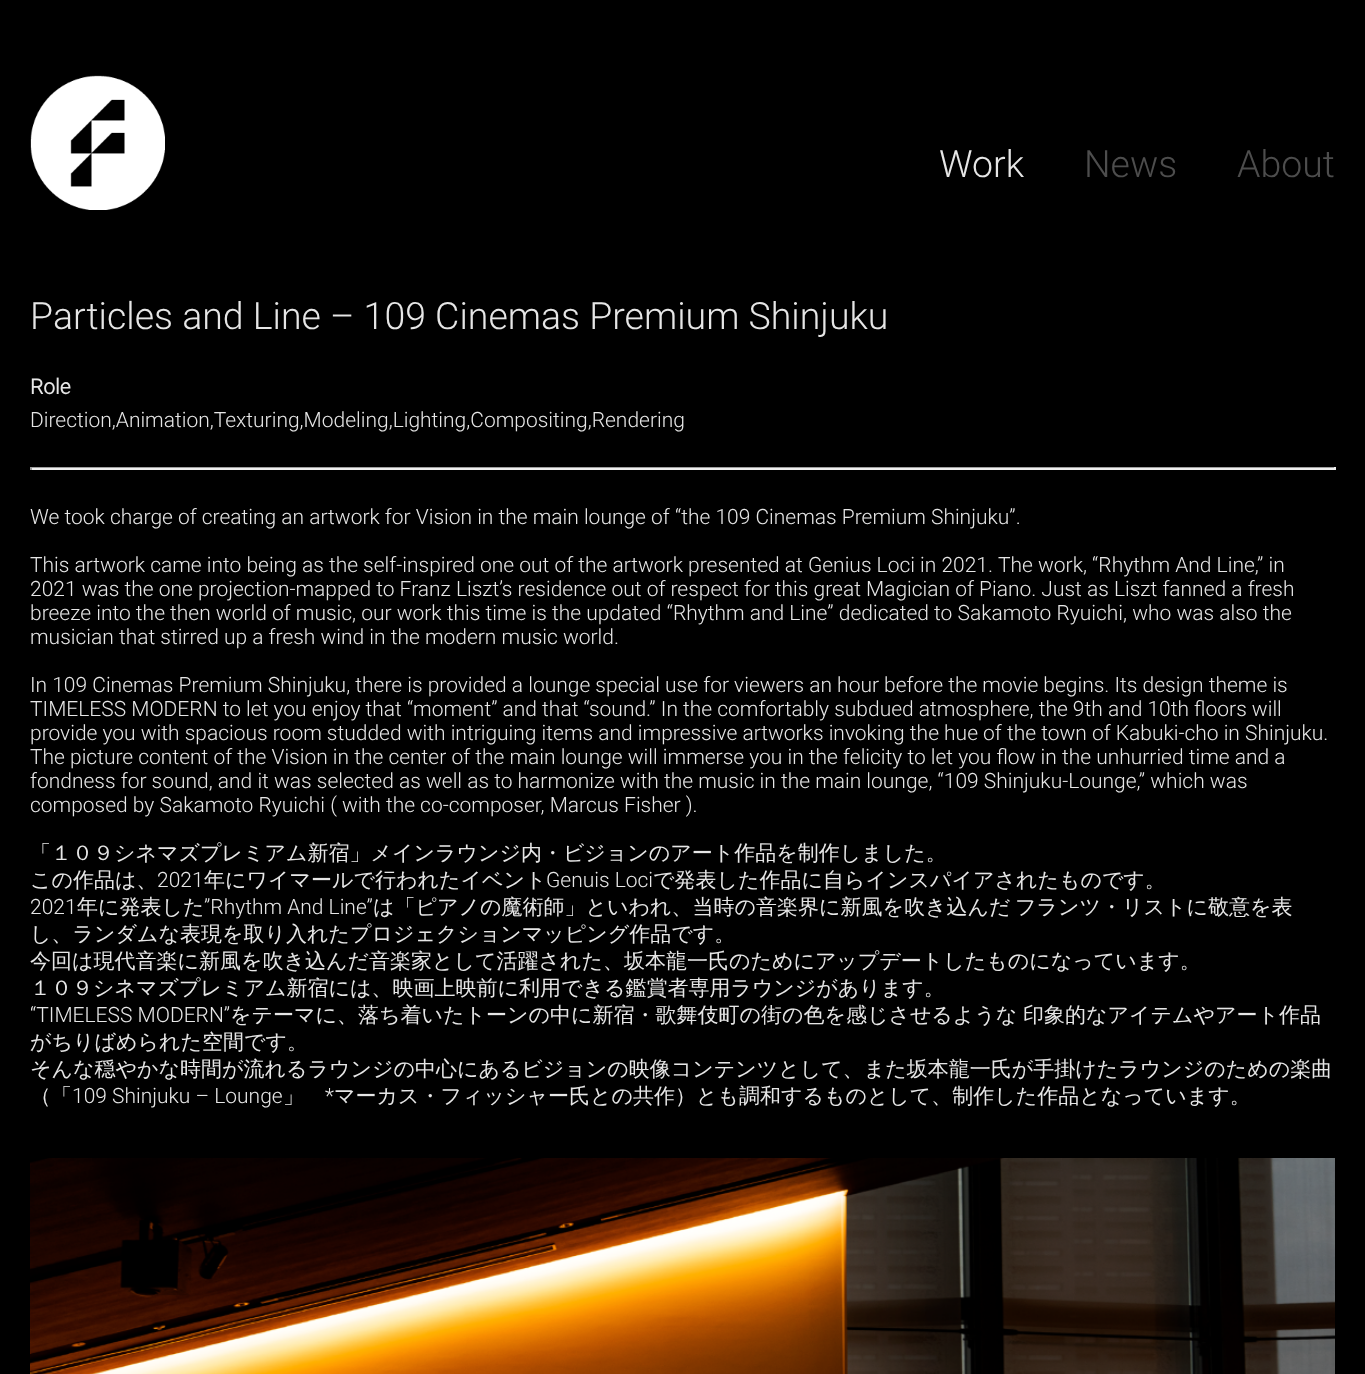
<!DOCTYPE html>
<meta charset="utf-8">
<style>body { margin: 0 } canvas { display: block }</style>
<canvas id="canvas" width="1365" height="1374"></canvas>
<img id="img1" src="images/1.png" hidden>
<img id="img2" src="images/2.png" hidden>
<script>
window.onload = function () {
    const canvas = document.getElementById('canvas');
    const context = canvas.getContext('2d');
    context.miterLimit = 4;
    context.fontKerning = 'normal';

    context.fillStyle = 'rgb(0, 0, 0)';
    context.fillRect(0, 0, 1365, 1374);
    context.drawImage(document.getElementById('img1'), 30, 75, 135, 135);
    context.fillStyle = 'rgb(159, 159, 159)';
    context.fillRect(30, 467, 1305, 1);
    context.fillStyle = 'rgb(238, 238, 238)';
    context.fillRect(1334, 467, 2, 3);
    context.fillRect(30, 468, 1305, 2);
    context.fillStyle = 'rgb(159, 159, 159)';
    context.fillRect(30, 467, 2, 3);
    context.drawImage(document.getElementById('img2'), 30, 1158, 1305, 216);
    context.font = '300 37.5px Roboto';
    context.fillStyle = 'rgb(230, 230, 230)';
    context.fillText('Work', 939, 177);
    context.fillStyle = 'rgb(77, 77, 77)';
    context.fillText('News', 1084, 177);
    context.fillText('About', 1237, 177);
    context.fillStyle = 'rgb(230, 230, 230)';
    context.fillText('Particles and Line – 109 Cinemas Premium Shinjuku', 30, 329);
    context.font = 'bold 21px Roboto';
    context.fillText('Role', 30, 394);
    context.font = '300 21px Roboto';
    context.fillText('Direction,Animation,Texturing,Modeling,Lighting,Compositing,Rendering', 30, 427);
    context.fillText('We took charge of creating an artwork for Vision in the main lounge of “the 109 Cinemas Premium Shinjuku”.', 30, 524);
    context.fillText('This artwork came into being as the self-inspired one out of the artwork presented at Genius Loci in 2021.', 30, 572);
    context.fillText('The work, “Rhythm And Line,” in', 998, 572);
    context.fillText('2021 was the one projection-mapped to Franz Liszt’s residence out of respect for this great Magician of Piano. Just as Liszt fanned a fresh', 30, 596);
    context.fillText('breeze into the then world of music, our work this time is the updated “Rhythm and Line” dedicated to Sakamoto Ryuichi, who was also the', 30, 620);
    context.fillText('musician that stirred up a fresh wind in the modern music world.', 30, 644);
    context.fillText('In 109 Cinemas Premium Shinjuku, there is provided a lounge special use for viewers an hour before the movie begins. Its design theme is', 30, 692);
    context.fillText('TIMELESS MODERN to let you enjoy that “moment” and that “sound.” In the comfortably subdued atmosphere, the 9th and 10th floors will', 30, 716);
    context.fillText('provide you with spacious room studded with intriguing items and impressive artworks invoking the hue of the town of Kabuki-cho in Shinjuku.', 30, 740);
    context.fillText('The picture content of the Vision in the center of the main lounge will immerse you in the felicity to let you flow in the unhurried time and a', 30, 764);
    context.fillText('fondness for sound, and it was selected as well as to harmonize with the music in the main lounge, “109 Shinjuku-Lounge,” which was', 30, 788);
    context.fillText('composed by Sakamoto Ryuichi ( with the co-composer, Marcus Fisher ).', 30, 812);
    context.font = '500 21px WenQuanYi Zen Hei';
    context.fillText('「１０９シネマズプレミアム新宿」メインラウンジ内・ビジョンのアート作品を制作しました。', 30, 860);
    context.fillText('この作品は、', 30, 887);
    context.font = '300 21px Roboto';
    context.fillText('2021', 157, 887);
    context.font = '500 21px WenQuanYi Zen Hei';
    context.fillText('年にワイマールで行われたイベント', 204, 887);
    context.font = '300 21px Roboto';
    context.fillText('Genuis Loci', 546, 887);
    context.font = '500 21px WenQuanYi Zen Hei';
    context.fillText('で発表した作品に自らインスパイアされたものです。', 653, 887);
    context.font = '300 21px Roboto';
    context.fillText('2021', 30, 914);
    context.font = '500 21px WenQuanYi Zen Hei';
    context.fillText('年に発表した', 77, 914);
    context.font = '300 21px Roboto';
    context.fillText('”Rhythm And Line”', 204, 914);
    context.font = '500 21px WenQuanYi Zen Hei';
    context.fillText('は「ピアノの魔術師」といわれ、当時の音楽界に新風を吹き込んだ', 373, 914);
    context.fillText('フランツ・リストに敬意を表', 1015, 914);
    context.fillText('し、ランダムな表現を取り入れたプロジェクションマッピング作品です。', 30, 941);
    context.fillText('今回は現代音楽に新風を吹き込んだ音楽家として活躍された、坂本龍一氏のためにアップデートしたものになっています。', 30, 968);
    context.fillText('１０９シネマズプレミアム新宿には、映画上映前に利用できる鑑賞者専用ラウンジがあります。', 30, 995);
    context.font = '300 21px Roboto';
    context.fillText('“TIMELESS MODERN”', 30, 1022);
    context.font = '500 21px WenQuanYi Zen Hei';
    context.fillText('をテーマに、落ち着いたトーンの中に新宿・歌舞伎町の街の色を感じさせるような', 230, 1022);
    context.fillText('印象的なアイテムやアート作品', 1023, 1022);
    context.fillText('がちりばめられた空間です。', 30, 1049);
    context.fillText('そんな穏やかな時間が流れるラウンジの中心にあるビジョンの映像コンテンツとして、また坂本龍一氏が手掛けたラウンジのための楽曲', 30, 1076);
    context.fillText('（「', 30, 1103);
    context.font = '300 21px Roboto';
    context.fillText('109 Shinjuku – Lounge', 72, 1103);
    context.fillText('*', 325, 1103);
    context.font = '500 21px WenQuanYi Zen Hei';
    context.fillText('マーカス・フィッシャー氏との共作）とも調和するものとして、制作した作品となっています。', 334, 1103);
    context.fillText('」', 283, 1103);
};
</script>
